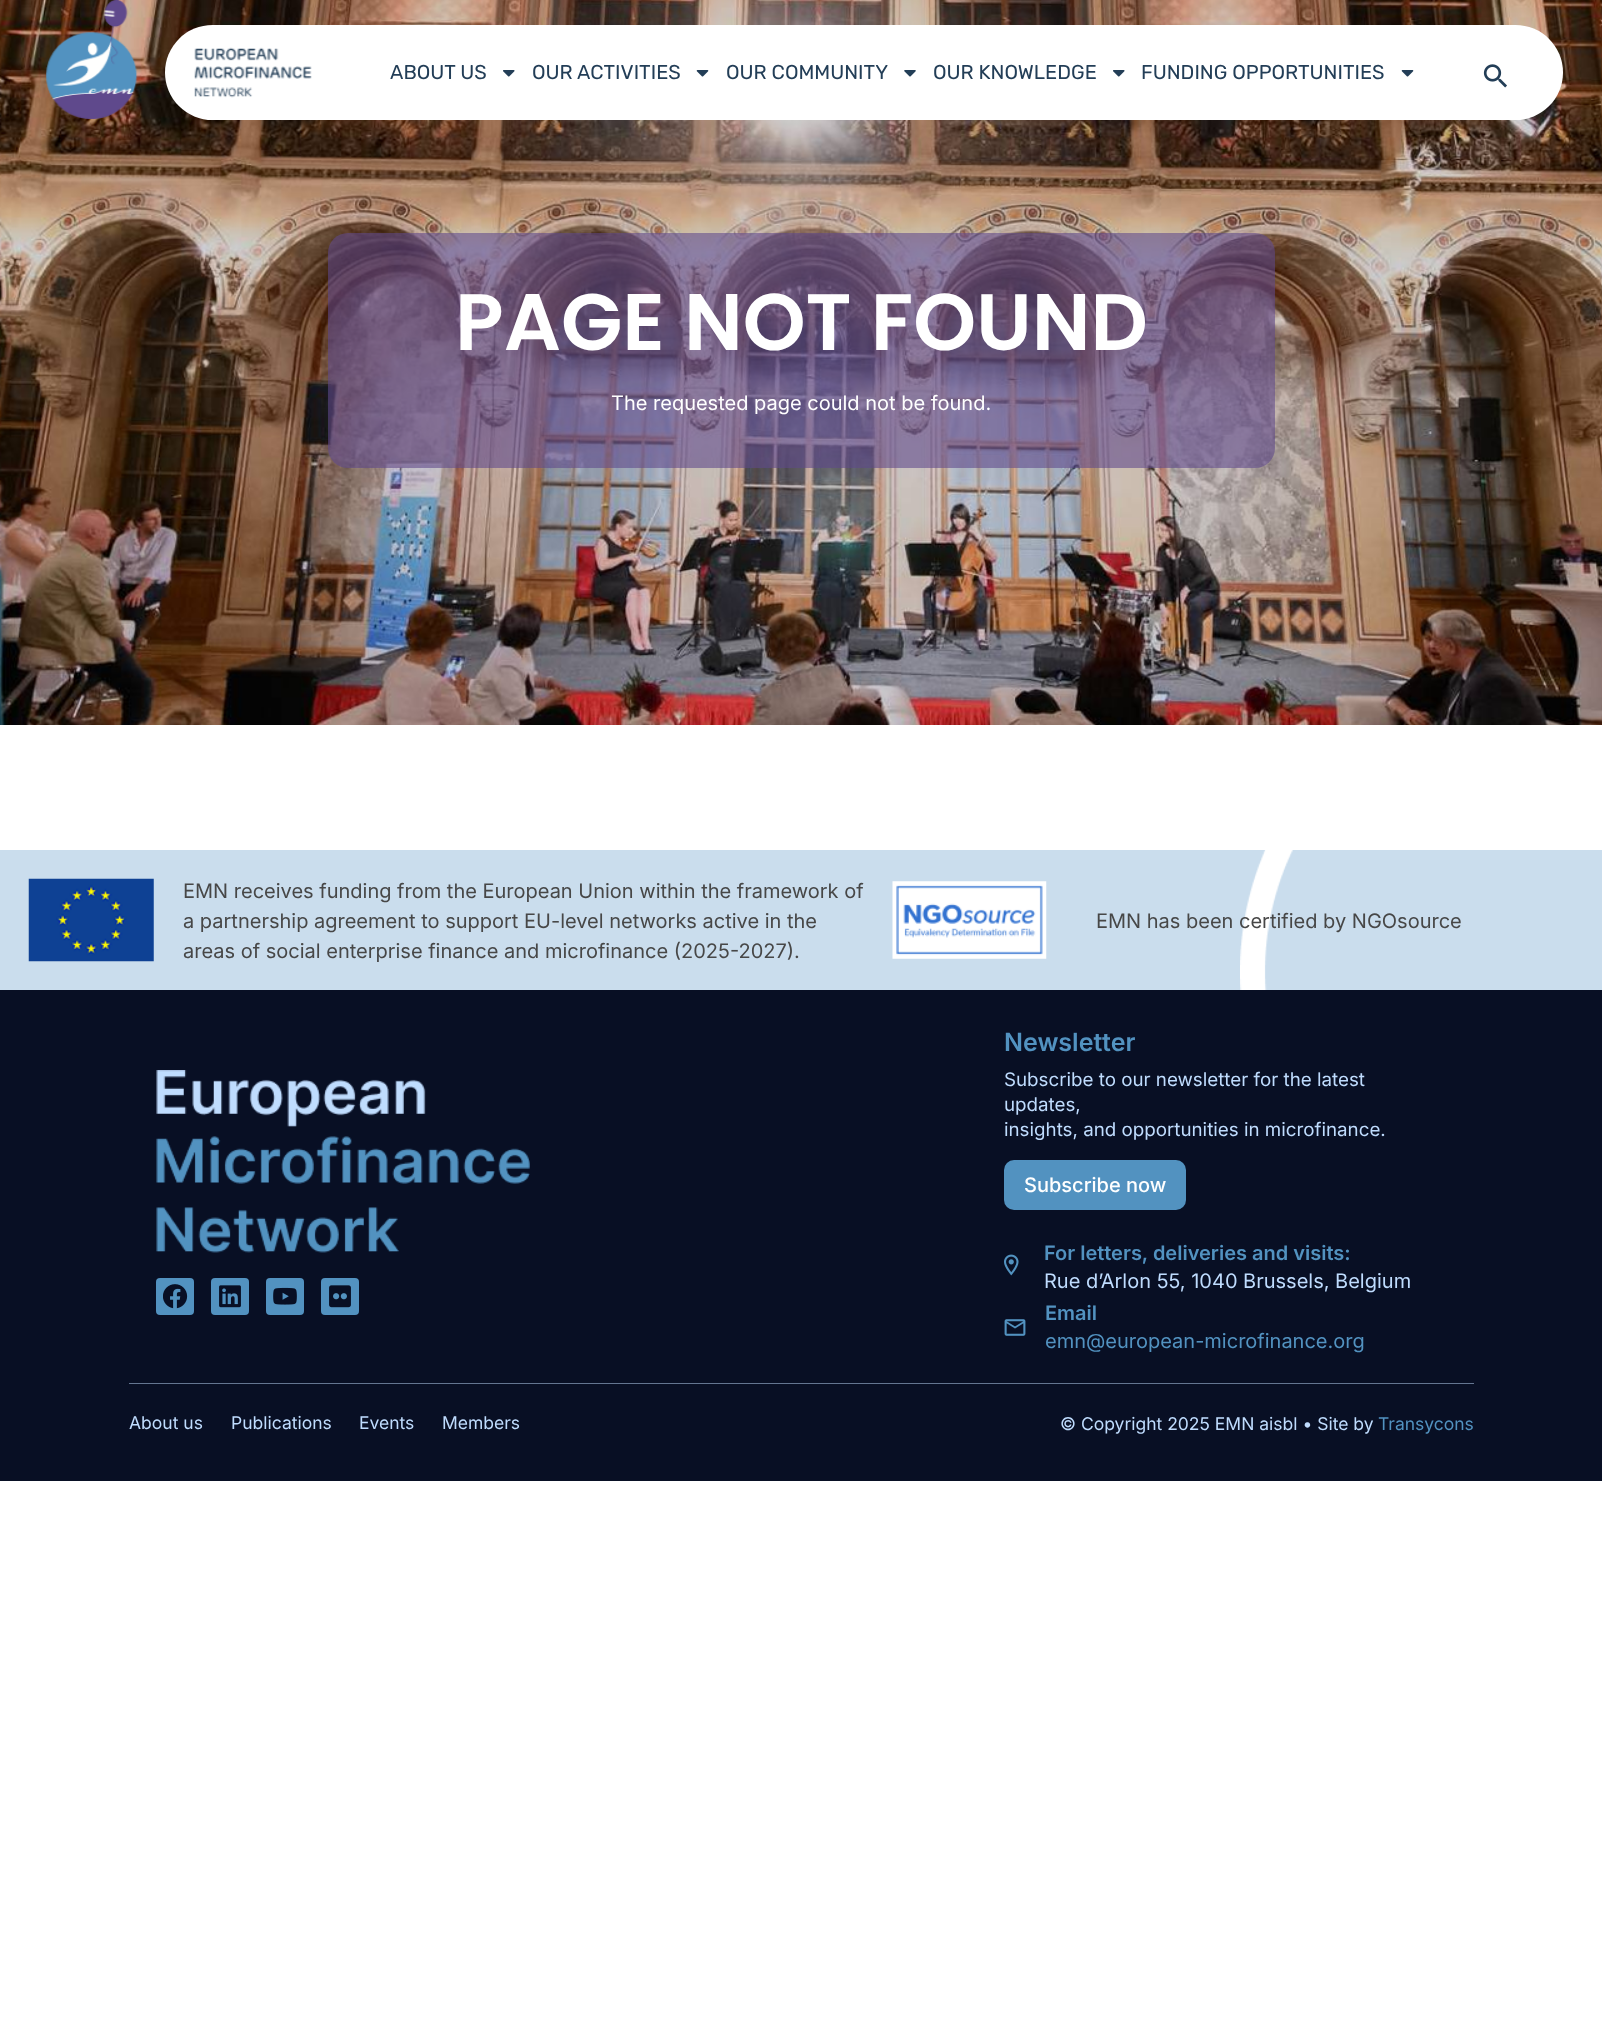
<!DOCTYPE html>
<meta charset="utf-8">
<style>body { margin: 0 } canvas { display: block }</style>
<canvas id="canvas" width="1602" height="2033"></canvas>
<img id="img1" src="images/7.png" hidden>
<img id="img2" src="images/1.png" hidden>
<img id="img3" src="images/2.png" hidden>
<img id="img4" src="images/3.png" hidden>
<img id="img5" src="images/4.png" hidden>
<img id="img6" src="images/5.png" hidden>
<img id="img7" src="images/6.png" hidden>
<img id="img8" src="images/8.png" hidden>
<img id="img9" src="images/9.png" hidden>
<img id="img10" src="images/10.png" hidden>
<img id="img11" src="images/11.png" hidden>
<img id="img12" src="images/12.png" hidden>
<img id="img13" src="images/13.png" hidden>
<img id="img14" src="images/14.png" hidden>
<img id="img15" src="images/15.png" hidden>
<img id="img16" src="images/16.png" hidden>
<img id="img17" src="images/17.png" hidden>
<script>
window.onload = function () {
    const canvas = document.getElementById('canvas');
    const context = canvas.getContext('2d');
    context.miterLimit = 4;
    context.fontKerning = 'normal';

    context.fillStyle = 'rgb(255, 255, 255)';
    context.fillRect(0, 0, 1602, 2033);
    context.drawImage(document.getElementById('img1'), 0, 0, 1602, 725);
    context.drawImage(document.getElementById('img2'), 46, 0, 92, 119);
    context.beginPath();
    context.roundRect(165, 25, 1398, 95, 47.5);
    context.fill();
    context.drawImage(document.getElementById('img3'), 194, 47, 118, 51);
    context.drawImage(document.getElementById('img4'), 503, 70, 12, 7);
    context.drawImage(document.getElementById('img5'), 696, 70, 13, 7);
    context.drawImage(document.getElementById('img6'), 904, 70, 12, 7);
    context.drawImage(document.getElementById('img4'), 1113, 70, 12, 7);
    context.drawImage(document.getElementById('img5'), 1401, 70, 13, 7);
    context.drawImage(document.getElementById('img7'), 1483, 64, 24, 24);
    context.fillStyle = 'rgba(95, 73, 140, 0.59)';
    context.beginPath();
    context.roundRect(328, 233, 947, 235, 20);
    context.fill();
    context.fillStyle = 'rgb(202, 221, 237)';
    context.fillRect(0, 850, 1602, 140);
    context.drawImage(document.getElementById('img8'), 1240, 850, 53, 140);
    context.drawImage(document.getElementById('img9'), 28, 878, 126, 84);
    context.drawImage(document.getElementById('img10'), 892, 881, 155, 78);
    context.fillStyle = 'rgb(8, 15, 36)';
    context.fillRect(0, 990, 1602, 491);
    context.drawImage(document.getElementById('img11'), 156, 1070, 374, 183);
    context.fillStyle = 'rgb(82, 146, 192)';
    context.beginPath();
    context.roundRect(156, 1278, 38, 37, 4);
    context.fill();
    context.drawImage(document.getElementById('img12'), 163, 1284, 25, 25);
    context.beginPath();
    context.roundRect(211, 1278, 38, 37, 4);
    context.fill();
    context.drawImage(document.getElementById('img13'), 219, 1285, 22, 23);
    context.beginPath();
    context.roundRect(266, 1278, 38, 37, 4);
    context.fill();
    context.drawImage(document.getElementById('img14'), 273, 1287, 24, 18);
    context.beginPath();
    context.roundRect(321, 1278, 38, 37, 4);
    context.fill();
    context.drawImage(document.getElementById('img15'), 329, 1285, 22, 23);
    context.beginPath();
    context.roundRect(1004, 1160, 182, 50, 10);
    context.fill();
    context.drawImage(document.getElementById('img16'), 1004, 1254, 15, 22);
    context.drawImage(document.getElementById('img17'), 1004, 1319, 22, 17);
    context.fillStyle = 'rgb(100, 118, 145)';
    context.fillRect(129, 1383, 1345, 1);
    context.font = '20px Rubik';
    context.fillStyle = 'rgb(35, 62, 87)';
    context.fillText('ABOUT US', 390, 79);
    context.fillText('OUR ACTIVITIES', 532, 79);
    context.fillText('OUR COMMUNITY', 726, 79);
    context.fillText('OUR KNOWLEDGE', 933, 79);
    context.fillText('FUNDING OPPORTUNITIES', 1141, 79);
    context.font = '600 80px Poppins';
    context.fillStyle = 'rgb(255, 255, 255)';
    context.fillText('PAGE NOT FOUND', 455, 350);
    context.font = '20px Inter';
    context.fillText('The requested page could not be found.', 611, 410);
    context.fillStyle = 'rgb(71, 71, 71)';
    context.fillText('EMN receives funding from the European Union within the framework of', 183, 898);
    context.fillText('a partnership agreement to support EU-level networks active in the', 183, 928);
    context.fillText('areas of social enterprise finance and microfinance (2025-2027).', 183, 958);
    context.fillText('EMN has been certified by NGOsource', 1096, 928);
    context.font = '600 25px Inter';
    context.fillStyle = 'rgb(82, 146, 192)';
    context.fillText('Newsletter', 1004, 1051);
    context.font = '18.75px Inter';
    context.fillStyle = 'rgb(191, 220, 254)';
    context.fillText('Subscribe to our newsletter for the latest', 1004, 1086);
    context.fillText('updates,', 1004, 1111);
    context.fillText('insights, and opportunities in microfinance.', 1004, 1136);
    context.font = '500 20px Inter';
    context.fillStyle = 'rgb(255, 255, 255)';
    context.fillText('Subscribe now', 1024, 1192);
    context.font = '600 20px Inter';
    context.fillStyle = 'rgb(82, 146, 192)';
    context.fillText('For letters, deliveries and visits:', 1044, 1260);
    context.font = '20px Inter';
    context.fillStyle = 'rgb(191, 220, 254)';
    context.fillText('Rue d’Arlon 55, 1040 Brussels, Belgium', 1044, 1288);
    context.font = '600 20px Inter';
    context.fillStyle = 'rgb(82, 146, 192)';
    context.fillText('Email', 1045, 1320);
    context.font = '20px Inter';
    context.fillText('emn@european-microfinance.org', 1045, 1348);
    context.font = '17.5px Inter';
    context.fillStyle = 'rgb(191, 220, 254)';
    context.fillText('About us', 129, 1429);
    context.fillText('Publications', 231, 1429);
    context.fillText('Events', 359, 1429);
    context.fillText('Members', 442, 1429);
    context.fillText('© Copyright 2025 EMN aisbl • Site by', 1060, 1430);
    context.fillStyle = 'rgb(82, 146, 192)';
    context.fillText('Transycons', 1378, 1430);
};
</script>
